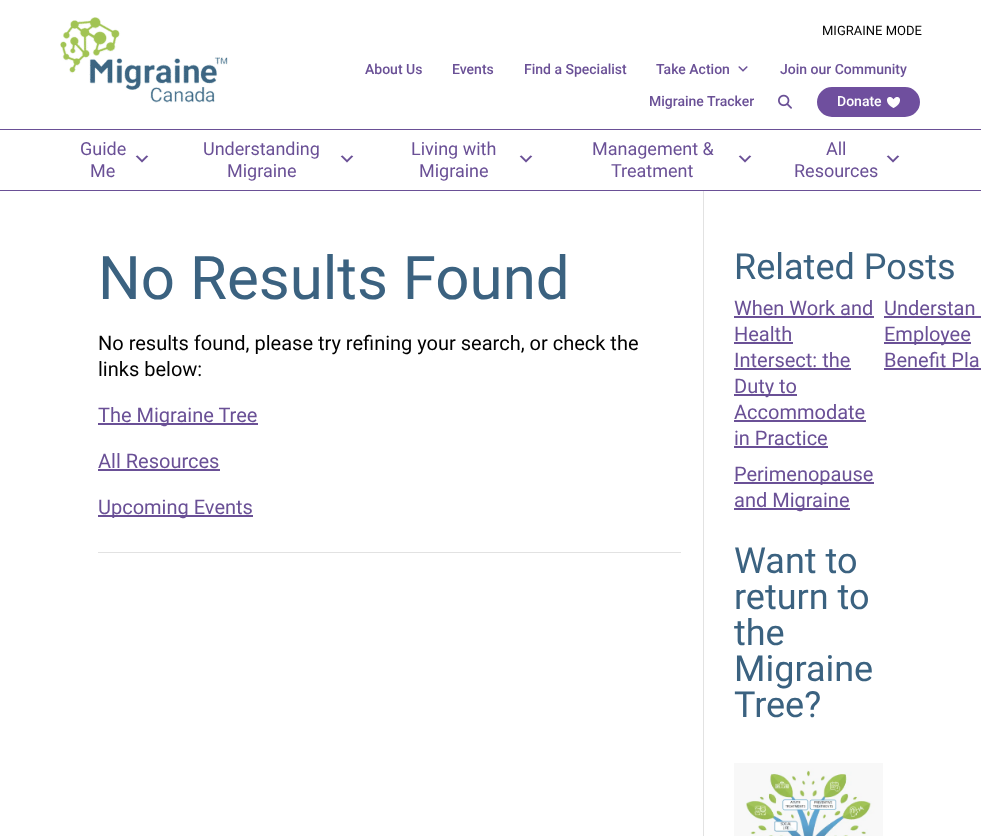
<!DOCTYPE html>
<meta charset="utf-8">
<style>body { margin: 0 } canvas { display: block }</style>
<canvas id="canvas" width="981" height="836"></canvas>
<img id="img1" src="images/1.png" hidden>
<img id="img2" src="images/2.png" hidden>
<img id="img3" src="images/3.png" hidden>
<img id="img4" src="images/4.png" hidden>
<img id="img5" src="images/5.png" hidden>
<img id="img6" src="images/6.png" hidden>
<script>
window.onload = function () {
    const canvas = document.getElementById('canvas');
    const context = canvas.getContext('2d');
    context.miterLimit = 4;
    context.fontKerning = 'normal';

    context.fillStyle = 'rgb(255, 255, 255)';
    context.fillRect(0, 0, 981, 836);
    context.fillStyle = 'rgb(106, 80, 150)';
    context.fillRect(0, 129, 981, 1);
    context.drawImage(document.getElementById('img1'), 60, 17, 168, 86);
    context.drawImage(document.getElementById('img2'), 738, 66, 10, 6);
    context.drawImage(document.getElementById('img3'), 778, 94, 14, 15);
    context.fillStyle = 'rgb(111, 79, 158)';
    context.beginPath();
    context.roundRect(816, 86, 105, 32, 16);
    context.fill();
    context.strokeStyle = 'rgb(255, 255, 255)';
    context.lineWidth = 2;
    context.stroke();
    context.drawImage(document.getElementById('img4'), 887, 97, 13, 11);
    context.fillStyle = 'rgb(106, 80, 150)';
    context.fillRect(0, 190, 981, 1);
    context.drawImage(document.getElementById('img5'), 135, 155, 14, 8);
    context.drawImage(document.getElementById('img5'), 340, 155, 14, 8);
    context.drawImage(document.getElementById('img5'), 519, 155, 14, 8);
    context.drawImage(document.getElementById('img5'), 738, 155, 14, 8);
    context.drawImage(document.getElementById('img5'), 886, 155, 14, 8);
    context.fillStyle = 'rgb(226, 226, 226)';
    context.fillRect(703, 191, 1, 645);
    context.fillRect(98, 552, 583, 1);
    context.fillStyle = 'rgb(106, 80, 150)';
    context.fillRect(98, 423, 160, 2);
    context.fillRect(98, 469, 122, 2);
    context.fillRect(98, 515, 155, 2);
    context.fillRect(734, 316, 140, 2);
    context.fillRect(734, 342, 59, 2);
    context.fillRect(734, 368, 117, 2);
    context.fillRect(734, 394, 63, 2);
    context.fillRect(734, 420, 132, 2);
    context.fillRect(734, 446, 94, 2);
    context.fillRect(884, 316, 97, 2);
    context.fillRect(884, 342, 87, 2);
    context.fillRect(884, 368, 97, 2);
    context.fillRect(734, 482, 140, 2);
    context.fillRect(734, 508, 116, 2);
    context.drawImage(document.getElementById('img6'), 734, 763, 149, 73);
    context.font = '13px Roboto';
    context.fillStyle = 'rgb(0, 0, 0)';
    context.fillText('MIGRAINE MODE', 822, 35);
    context.font = '500 14px Roboto';
    context.fillStyle = 'rgb(106, 80, 150)';
    context.fillText('About Us', 365, 74);
    context.fillText('Events', 452, 74);
    context.fillText('Find a Specialist', 524, 74);
    context.fillText('Take Action', 656, 74);
    context.fillText('Join our Community', 780, 74);
    context.fillText('Migraine Tracker', 649, 106);
    context.fillStyle = 'rgb(255, 255, 255)';
    context.fillText('Donate', 837, 106);
    context.font = '18px Roboto';
    context.fillStyle = 'rgb(106, 80, 150)';
    context.fillText('Guide', 80, 155);
    context.fillText('Me', 90, 177);
    context.fillText('Understanding', 203, 155);
    context.fillText('Migraine', 227, 177);
    context.fillText('Living with', 411, 155);
    context.fillText('Migraine', 419, 177);
    context.fillText('Management &', 592, 155);
    context.fillText('Treatment', 611, 177);
    context.fillText('All', 826, 155);
    context.fillText('Resources', 794, 177);
    context.font = '60px Roboto';
    context.fillStyle = 'rgb(59, 98, 128)';
    context.fillText('No Results Found', 98, 299);
    context.font = '20px Roboto';
    context.fillStyle = 'rgb(0, 0, 0)';
    context.fillText('No results found, please try refining your search, or check the', 98, 350);
    context.fillText('links below:', 98, 376);
    context.fillStyle = 'rgb(106, 80, 150)';
    context.fillText('The Migraine Tree', 98, 422);
    context.fillText('All Resources', 98, 468);
    context.fillText('Upcoming Events', 98, 514);
    context.font = '36px Roboto';
    context.fillStyle = 'rgb(59, 98, 128)';
    context.fillText('Related Posts', 734, 279);
    context.font = '20px Roboto';
    context.fillStyle = 'rgb(106, 80, 150)';
    context.fillText('When Work and', 734, 315);
    context.fillText('Health', 734, 341);
    context.fillText('Intersect: the', 734, 367);
    context.fillText('Duty to', 734, 393);
    context.fillText('Accommodate', 734, 419);
    context.fillText('in Practice', 734, 445);
    context.fillText('Understan', 884, 315);
    context.fillText('Employee', 884, 341);
    context.fillText('Benefit Pla', 884, 367);
    context.fillText('Perimenopause', 734, 481);
    context.fillText('and Migraine', 734, 507);
    context.font = '36px Roboto';
    context.fillStyle = 'rgb(59, 98, 128)';
    context.fillText('Want to', 734, 573);
    context.fillText('return to', 734, 609);
    context.fillText('the', 734, 645);
    context.fillText('Migraine', 734, 681);
    context.fillText('Tree?', 734, 717);
};
</script>
